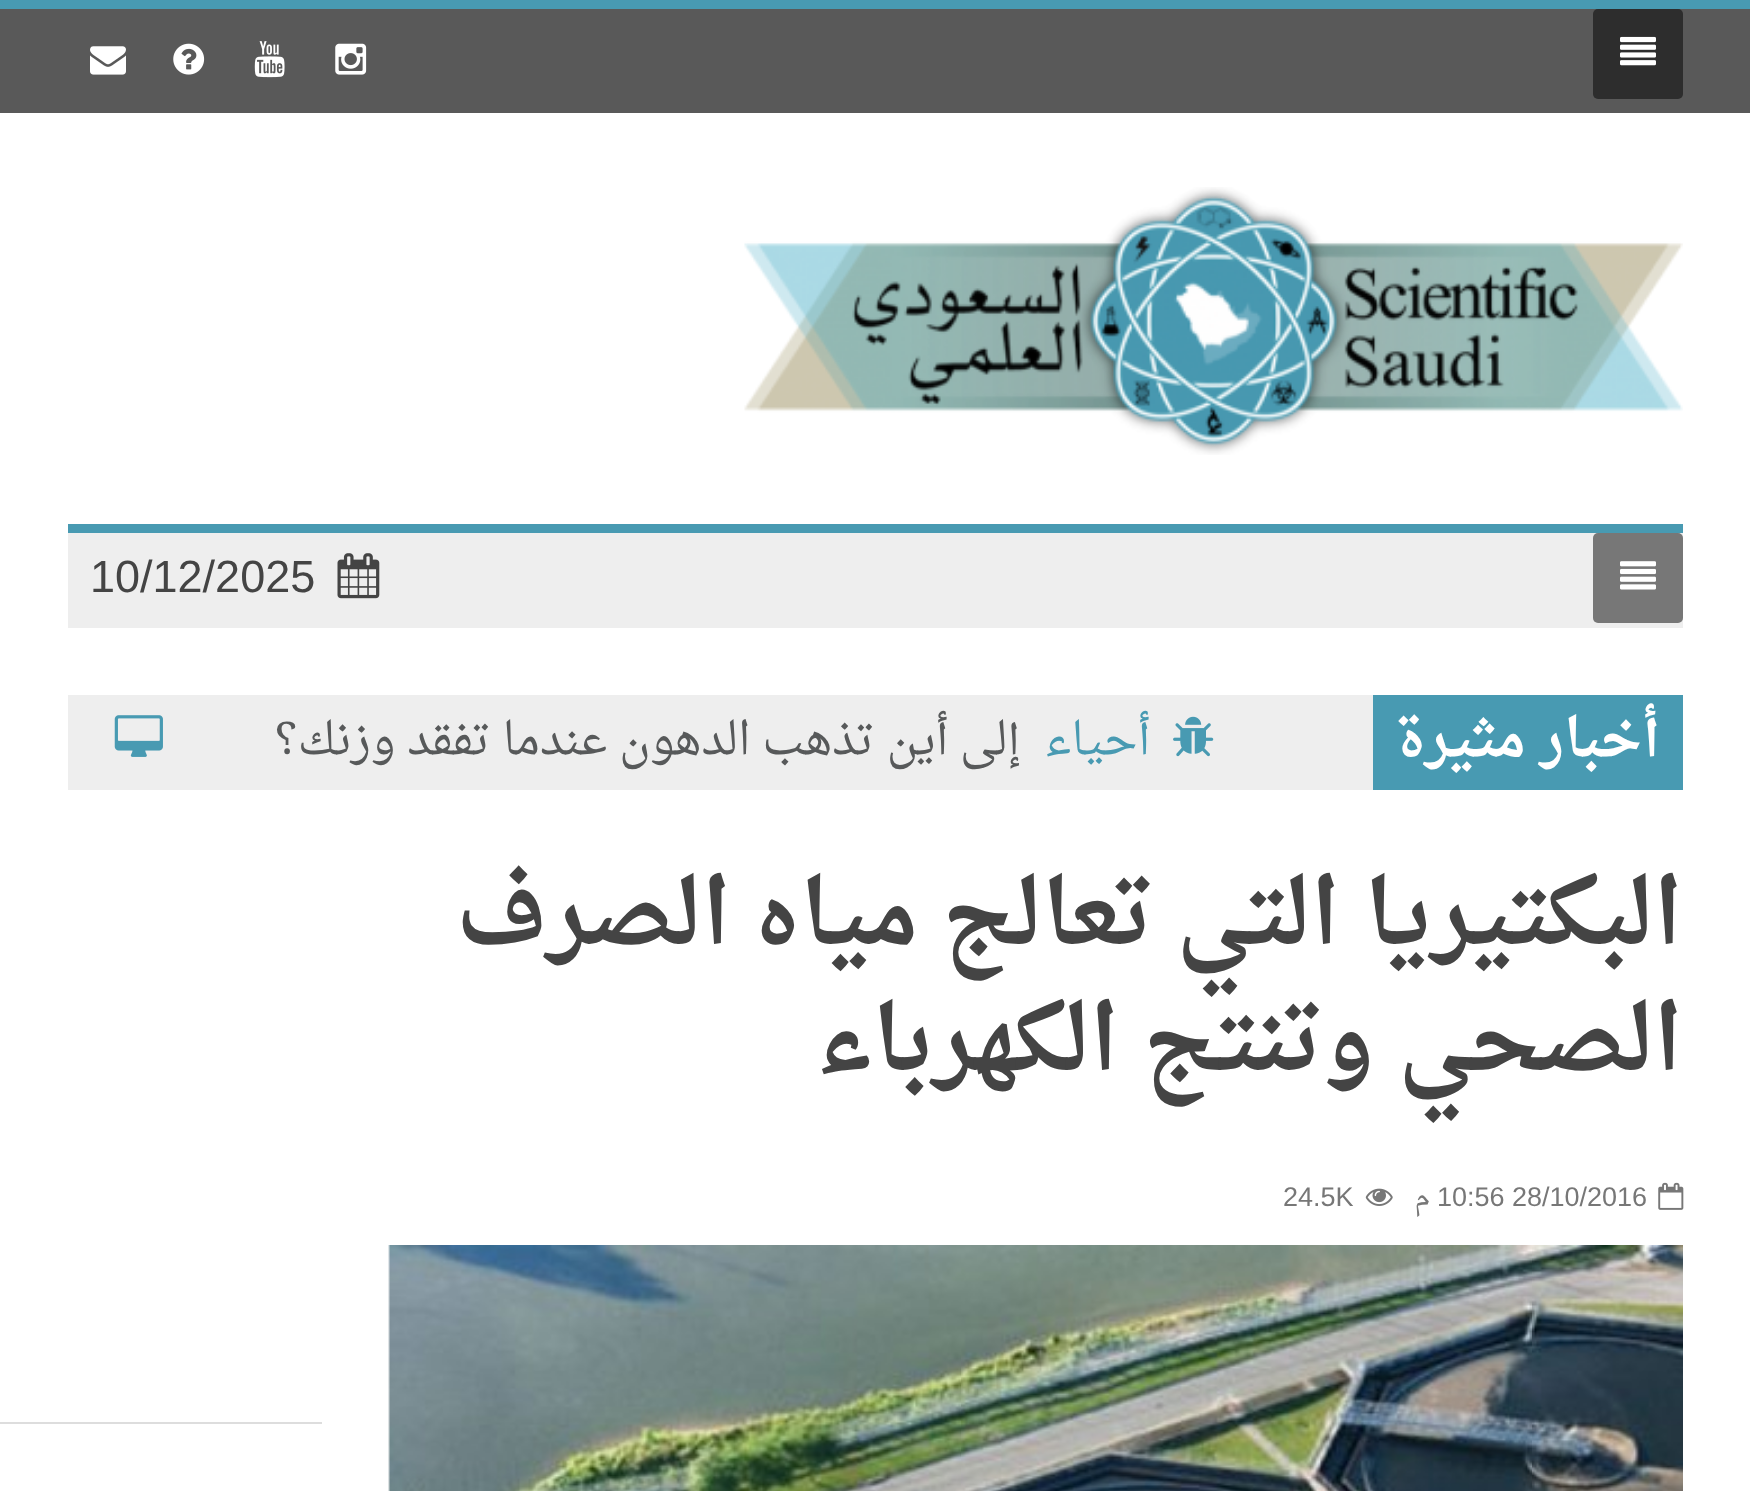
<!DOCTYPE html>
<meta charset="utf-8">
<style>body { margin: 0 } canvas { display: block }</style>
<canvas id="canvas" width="1750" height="1491"></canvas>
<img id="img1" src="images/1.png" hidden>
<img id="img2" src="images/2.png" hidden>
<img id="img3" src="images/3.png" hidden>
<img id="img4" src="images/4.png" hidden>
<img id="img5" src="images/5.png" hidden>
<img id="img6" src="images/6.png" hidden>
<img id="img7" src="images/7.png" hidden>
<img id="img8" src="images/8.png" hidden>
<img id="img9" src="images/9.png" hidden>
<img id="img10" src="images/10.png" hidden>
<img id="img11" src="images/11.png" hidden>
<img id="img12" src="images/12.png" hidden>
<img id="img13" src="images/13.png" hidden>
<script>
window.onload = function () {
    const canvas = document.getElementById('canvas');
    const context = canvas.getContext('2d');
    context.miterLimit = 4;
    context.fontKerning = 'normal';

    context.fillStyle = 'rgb(89, 89, 89)';
    context.fillRect(0, 0, 1750, 1491);
    context.fillStyle = 'rgb(72, 154, 178)';
    context.fillRect(0, 0, 1750, 9);
    context.fillStyle = 'rgb(45, 45, 45)';
    context.beginPath();
    context.roundRect(1593, 9, 90, 90, 5);
    context.fill();
    context.drawImage(document.getElementById('img1'), 1620, 36, 36, 30);
    context.drawImage(document.getElementById('img2'), 335, 43, 32, 32);
    context.drawImage(document.getElementById('img3'), 254, 41, 31, 37);
    context.drawImage(document.getElementById('img4'), 173, 43, 32, 32);
    context.drawImage(document.getElementById('img5'), 90, 46, 36, 29);
    context.fillStyle = 'rgb(255, 255, 255)';
    context.fillRect(0, 113, 1750, 1378);
    context.drawImage(document.getElementById('img6'), 744, 187, 939, 268);
    context.fillStyle = 'rgb(238, 238, 238)';
    context.fillRect(68, 533, 1615, 95);
    context.fillStyle = 'rgb(72, 154, 178)';
    context.fillRect(68, 524, 1615, 9);
    context.fillStyle = 'rgb(119, 119, 119)';
    context.beginPath();
    context.roundRect(1593, 533, 90, 90, 5);
    context.fill();
    context.drawImage(document.getElementById('img7'), 1620, 561, 36, 29);
    context.drawImage(document.getElementById('img8'), 337, 553, 43, 46);
    context.fillStyle = 'rgb(238, 238, 238)';
    context.fillRect(68, 695, 1305, 95);
    context.fillStyle = 'rgb(72, 154, 178)';
    context.fillRect(1373, 695, 310, 95);
    context.drawImage(document.getElementById('img9'), 1173, 716, 41, 41);
    context.drawImage(document.getElementById('img10'), 114, 715, 49, 42);
    context.drawImage(document.getElementById('img11'), 1658, 1182, 26, 28);
    context.drawImage(document.getElementById('img12'), 1365, 1188, 28, 18);
    context.drawImage(document.getElementById('img13'), 388, 1245, 1295, 246);
    context.fillStyle = 'rgb(221, 221, 221)';
    context.fillRect(0, 1422, 322, 2);
    context.font = '45px Liberation Sans';
    context.fillStyle = 'rgb(68, 68, 68)';
    context.fillText('10/12/2025', 90, 592);
    context.direction = 'rtl';
    context.font = 'bold 54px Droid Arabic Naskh';
    context.fillStyle = 'rgb(255, 255, 255)';
    context.fillText('أخبار مثيرة', 1660, 756);
    context.font = '45px Droid Arabic Naskh';
    context.fillStyle = 'rgb(72, 154, 178)';
    context.fillText('أحياء', 1150, 754);
    context.fillStyle = 'rgb(87, 89, 90)';
    context.fillText('إلى أين تذهب الدهون عندما تفقد وزنك؟', 1021, 754);
    context.font = 'bold 90px Droid Arabic Naskh';
    context.fillStyle = 'rgb(68, 68, 68)';
    context.fillText('البكتيريا التي تعالج مياه الصرف', 1683, 943);
    context.fillText('الصحي وتنتج الكهرباء', 1683, 1069);
    context.direction = 'ltr';
    context.font = '27px Liberation Sans';
    context.fillStyle = 'rgb(119, 119, 119)';
    context.fillText('28/10/2016', 1512, 1206);
    context.fillText('10:56', 1437, 1206);
    context.direction = 'rtl';
    context.font = '27px Droid Arabic Naskh';
    context.fillText('م', 1430, 1206);
    context.direction = 'ltr';
    context.font = '27px Liberation Sans';
    context.fillText('24.5K', 1283, 1206);
};
</script>
